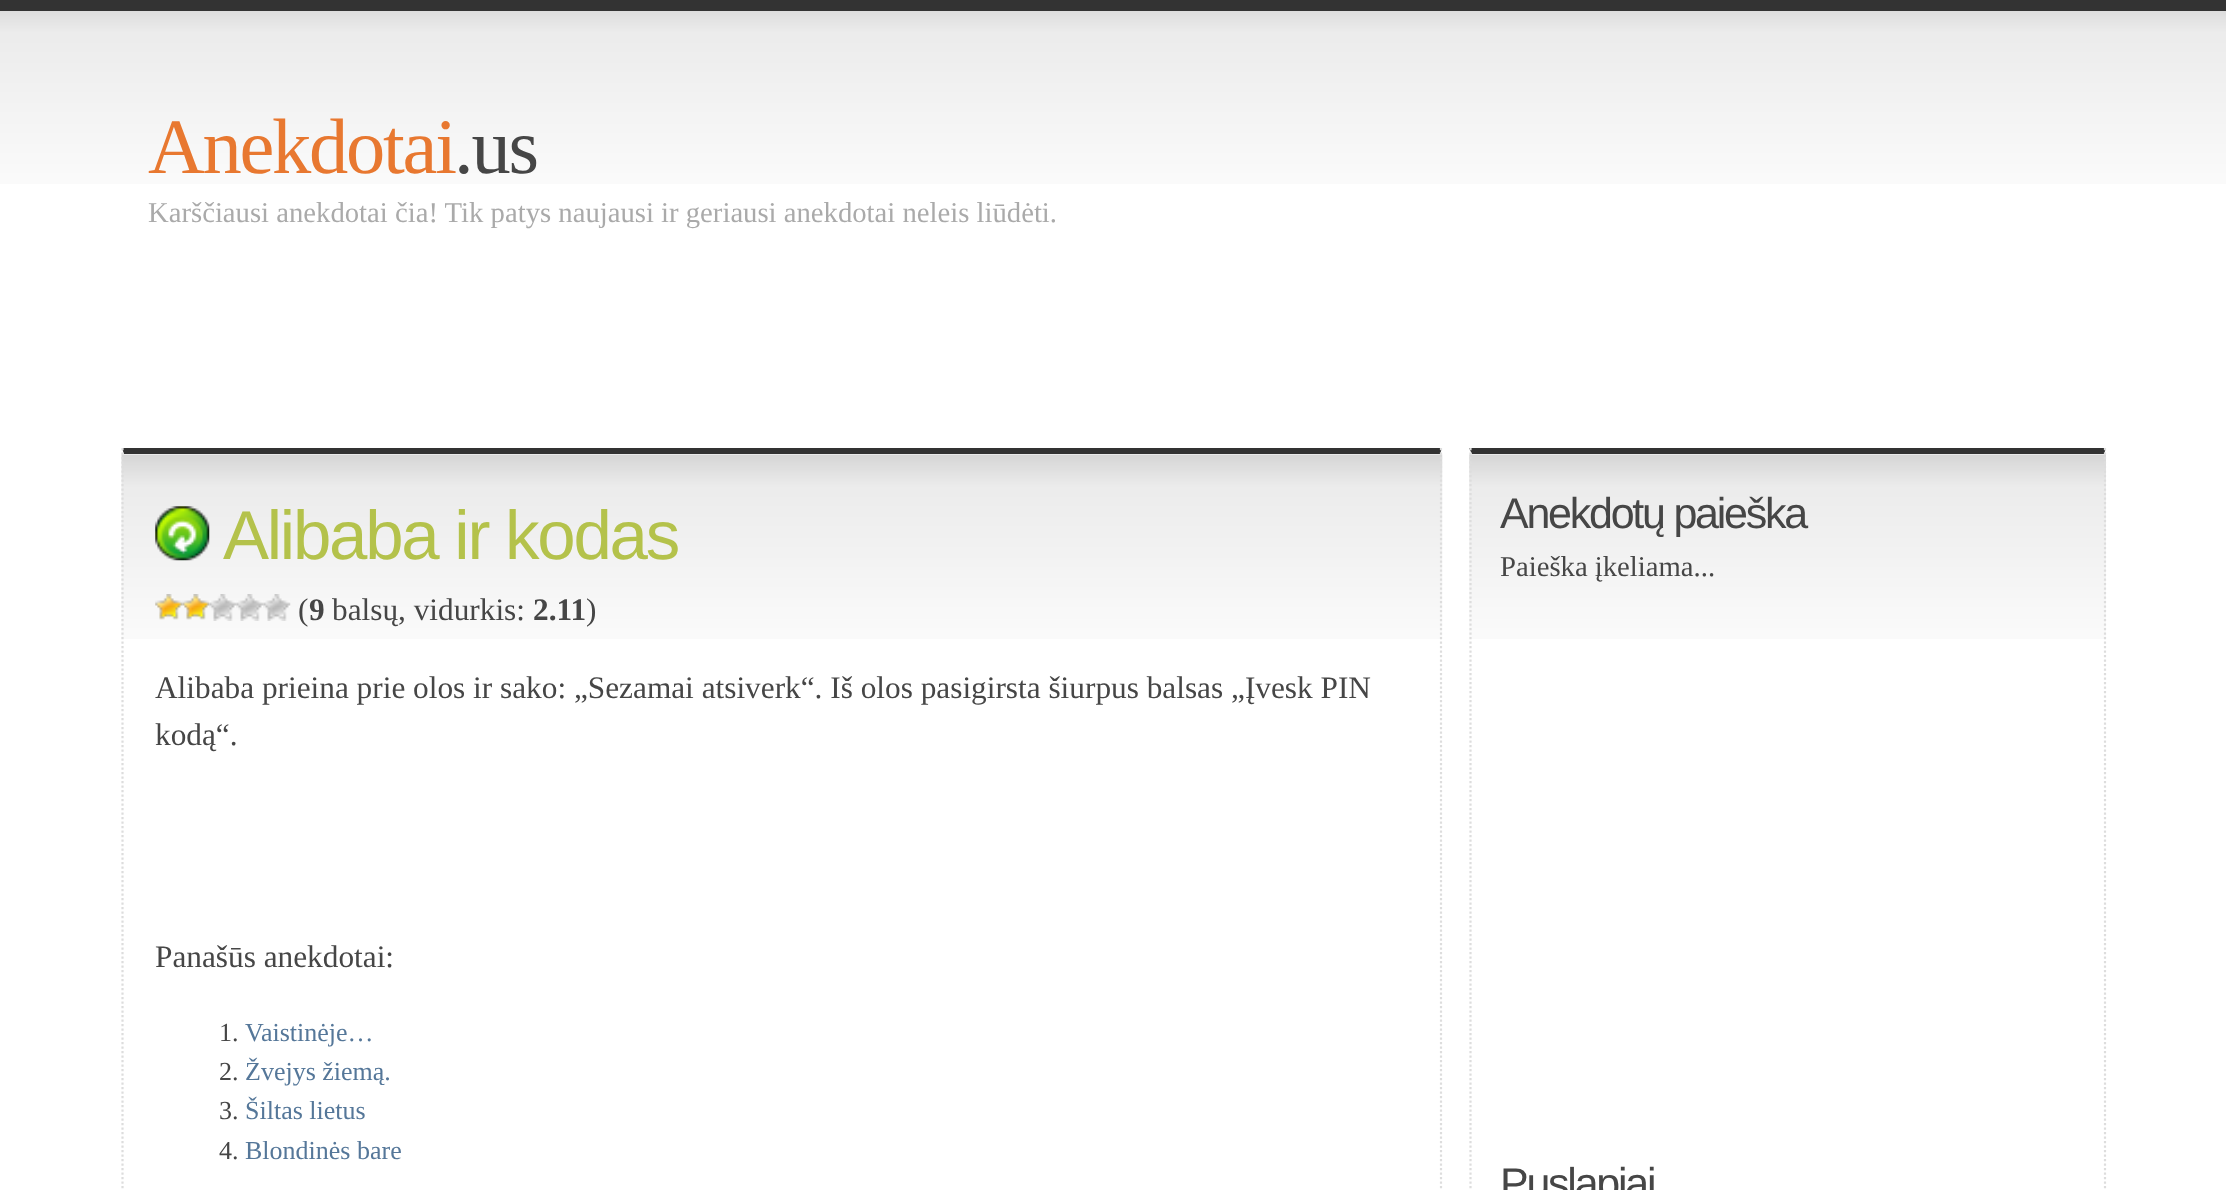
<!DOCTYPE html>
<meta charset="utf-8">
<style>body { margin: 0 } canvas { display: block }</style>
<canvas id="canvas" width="2226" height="1190"></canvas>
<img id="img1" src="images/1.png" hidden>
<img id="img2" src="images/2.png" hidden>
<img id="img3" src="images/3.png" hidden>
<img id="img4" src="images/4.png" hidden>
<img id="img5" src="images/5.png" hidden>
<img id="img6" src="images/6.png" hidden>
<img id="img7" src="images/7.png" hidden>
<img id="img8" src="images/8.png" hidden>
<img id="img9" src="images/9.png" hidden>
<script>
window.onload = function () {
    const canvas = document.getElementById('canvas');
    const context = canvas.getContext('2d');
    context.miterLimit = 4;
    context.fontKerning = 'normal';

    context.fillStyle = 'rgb(255, 255, 255)';
    context.fillRect(0, 0, 2226, 1190);
    context.drawImage(document.getElementById('img1'), 0, 11, 2226, 173);
    context.fillStyle = 'rgb(51, 51, 51)';
    context.fillRect(0, 0, 2226, 11);
    context.drawImage(document.getElementById('img2'), 121, 454, 1322, 185);
    context.beginPath();
    context.moveTo(122, 448);
    context.lineTo(1442, 448);
    context.lineTo(1440, 454);
    context.lineTo(124, 454);
    context.closePath();
    context.fill();
    context.beginPath();
    context.moveTo(1441, 448);
    context.lineTo(1441, 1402);
    context.strokeStyle = 'rgb(221, 221, 221)';
    context.lineWidth = 2.2;
    context.setLineDash([2.25, 2.25]);
    context.stroke();
    context.beginPath();
    context.moveTo(122.5, 448);
    context.lineTo(122.5, 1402);
    context.stroke();
    context.drawImage(document.getElementById('img3'), 155, 506, 55, 55);
    context.drawImage(document.getElementById('img4'), 155, 594, 28, 26);
    context.drawImage(document.getElementById('img5'), 182, 594, 28, 26);
    context.drawImage(document.getElementById('img6'), 209, 594, 28, 27);
    context.drawImage(document.getElementById('img7'), 236, 594, 28, 27);
    context.drawImage(document.getElementById('img8'), 263, 594, 28, 27);
    context.drawImage(document.getElementById('img9'), 1469, 454, 637, 185);
    context.beginPath();
    context.moveTo(1469, 448);
    context.lineTo(2106, 448);
    context.lineTo(2104, 454);
    context.lineTo(1472, 454);
    context.closePath();
    context.fill();
    context.beginPath();
    context.moveTo(2105, 448);
    context.lineTo(2105, 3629);
    context.stroke();
    context.beginPath();
    context.moveTo(1470.5, 448);
    context.lineTo(1470.5, 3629);
    context.stroke();
    context.letterSpacing = '-2.25px';
    context.font = '78.5px Liberation Serif';
    context.fillStyle = 'rgb(232, 120, 48)';
    context.fillText('Anekdotai', 148, 173);
    context.fillStyle = 'rgb(70, 70, 70)';
    context.fillText('.us', 454, 173);
    context.letterSpacing = '0px';
    context.font = '28.7px Liberation Serif';
    context.fillStyle = 'rgb(170, 170, 170)';
    context.fillText('Karščiausi anekdotai čia! Tik patys naujausi ir geriausi anekdotai neleis liūdėti.', 148, 222);
    context.letterSpacing = '-2.25px';
    context.font = '69px Liberation Sans';
    context.fillStyle = 'rgb(180, 194, 75)';
    context.fillText('Alibaba ir kodas', 223, 559);
    context.letterSpacing = '0px';
    context.font = '31.3px Liberation Serif';
    context.fillStyle = 'rgb(70, 70, 70)';
    context.fillText('(', 298, 620);
    context.font = 'bold 31.3px Liberation Serif';
    context.fillText('9', 309, 620);
    context.font = '31.3px Liberation Serif';
    context.fillText('balsų, vidurkis:', 332, 620);
    context.font = 'bold 31.3px Liberation Serif';
    context.fillText('2.11', 533, 620);
    context.font = '31.3px Liberation Serif';
    context.fillText(')', 586, 620);
    context.fillText('Alibaba prieina prie olos ir sako: „Sezamai atsiverk“. Iš olos pasigirsta šiurpus balsas „Įvesk PIN', 155, 698);
    context.fillText('kodą“.', 155, 745);
    context.fillText('Panašūs anekdotai:', 155, 967);
    context.font = '26px Liberation Serif';
    context.fillText('1.', 219, 1041);
    context.fillStyle = 'rgb(85, 119, 153)';
    context.fillText('Vaistinėje…', 245, 1041);
    context.fillStyle = 'rgb(70, 70, 70)';
    context.fillText('2.', 219, 1080);
    context.fillStyle = 'rgb(85, 119, 153)';
    context.fillText('Žvejys žiemą.', 245, 1080);
    context.fillStyle = 'rgb(70, 70, 70)';
    context.fillText('3.', 219, 1119);
    context.fillStyle = 'rgb(85, 119, 153)';
    context.fillText('Šiltas lietus', 245, 1119);
    context.fillStyle = 'rgb(70, 70, 70)';
    context.fillText('4.', 219, 1159);
    context.fillStyle = 'rgb(85, 119, 153)';
    context.fillText('Blondinės bare', 245, 1159);
    context.letterSpacing = '-2.25px';
    context.font = '43px Liberation Sans';
    context.fillStyle = 'rgb(70, 70, 70)';
    context.fillText('Anekdotų paieška', 1500, 528);
    context.letterSpacing = '0px';
    context.font = '28.7px Liberation Serif';
    context.fillText('Paieška įkeliama...', 1500, 576);
    context.letterSpacing = '-2.25px';
    context.font = '43px Liberation Sans';
    context.fillText('Puslapiai', 1500, 1198);
};
</script>
